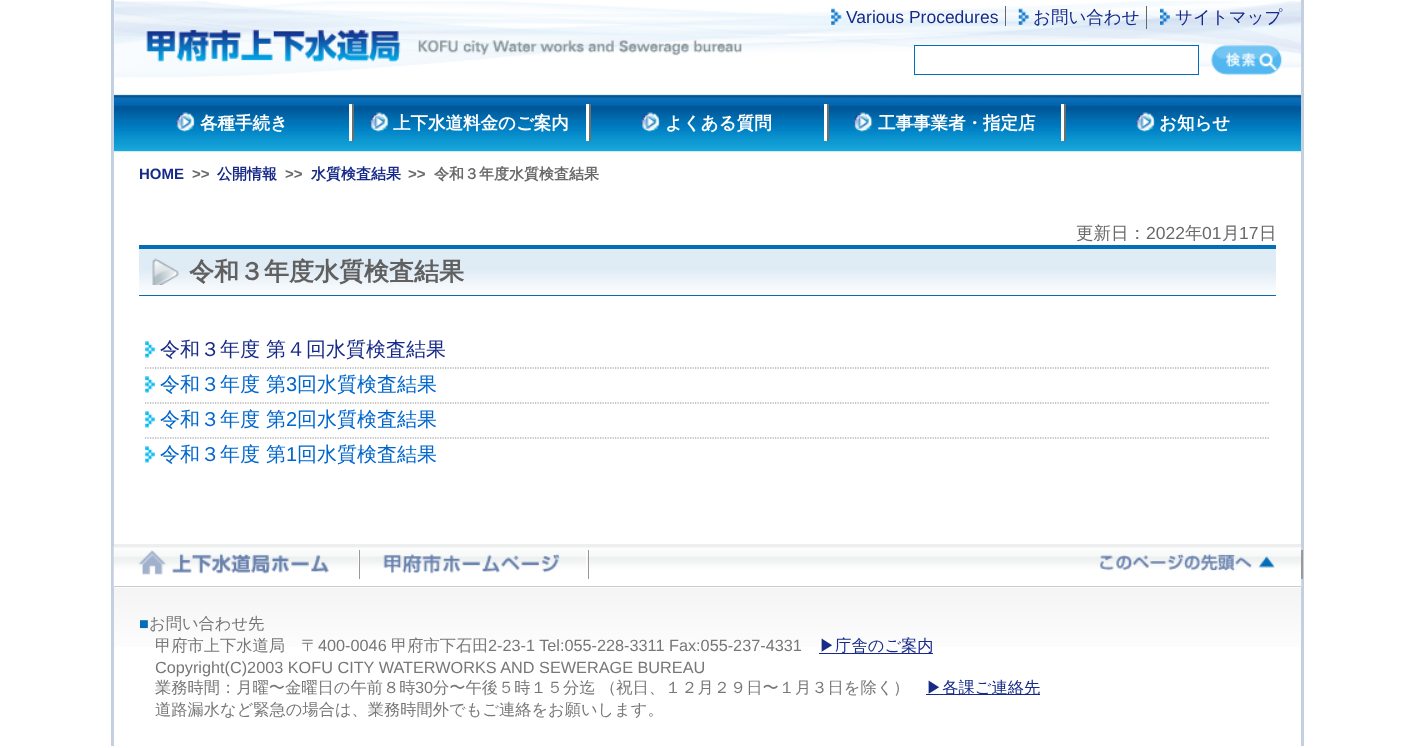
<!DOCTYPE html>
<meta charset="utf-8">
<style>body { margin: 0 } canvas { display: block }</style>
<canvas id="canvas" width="1414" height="748"></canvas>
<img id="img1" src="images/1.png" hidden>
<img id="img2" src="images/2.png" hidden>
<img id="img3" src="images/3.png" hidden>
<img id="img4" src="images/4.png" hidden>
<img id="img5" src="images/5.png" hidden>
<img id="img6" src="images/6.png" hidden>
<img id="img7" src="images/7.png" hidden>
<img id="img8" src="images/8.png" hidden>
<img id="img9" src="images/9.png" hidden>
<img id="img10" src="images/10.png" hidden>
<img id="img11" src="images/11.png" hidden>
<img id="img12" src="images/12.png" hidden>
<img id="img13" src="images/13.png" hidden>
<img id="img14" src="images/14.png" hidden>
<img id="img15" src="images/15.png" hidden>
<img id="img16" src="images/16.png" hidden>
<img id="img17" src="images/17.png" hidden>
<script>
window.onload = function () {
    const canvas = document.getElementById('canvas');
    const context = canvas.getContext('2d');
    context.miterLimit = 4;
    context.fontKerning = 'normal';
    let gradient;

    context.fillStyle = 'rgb(255, 255, 255)';
    context.fillRect(0, 0, 1414, 748);
    context.drawImage(document.getElementById('img1'), 114, 1, 1187, 77);
    context.drawImage(document.getElementById('img2'), 831, 8, 11, 17);
    context.fillStyle = 'rgb(102, 102, 102)';
    context.fillRect(1005, 6, 1, 20);
    context.drawImage(document.getElementById('img3'), 1018, 8, 11, 17);
    context.fillRect(1146, 6, 1, 23);
    context.drawImage(document.getElementById('img4'), 1160, 8, 10, 17);
    context.drawImage(document.getElementById('img5'), 146, 29, 596, 33);
    context.fillStyle = 'rgb(255, 255, 255)';
    context.fillRect(915, 46, 283, 21);
    context.strokeStyle = 'rgb(3, 110, 184)';
    context.strokeRect(914.5, 45.5, 284, 29);
    context.drawImage(document.getElementById('img6'), 1211, 45, 71, 31);
    context.drawImage(document.getElementById('img7'), 114, 94, 1187, 58);
    context.fillStyle = 'rgb(196, 207, 224)';
    context.fillRect(1301, 0, 3, 198);
    context.fillRect(111, 0, 3, 198);
    context.fillStyle = 'rgb(106, 111, 112)';
    context.fillRect(352, 104, 2, 37);
    context.fillStyle = 'rgb(255, 255, 255)';
    context.fillRect(349, 104, 3, 37);
    context.drawImage(document.getElementById('img8'), 176, 112, 19, 20);
    context.fillStyle = 'rgb(106, 111, 112)';
    context.fillRect(589, 104, 2, 37);
    context.fillStyle = 'rgb(255, 255, 255)';
    context.fillRect(586, 104, 3, 37);
    context.drawImage(document.getElementById('img9'), 370, 112, 19, 20);
    context.fillStyle = 'rgb(106, 111, 112)';
    context.fillRect(827, 104, 2, 37);
    context.fillStyle = 'rgb(255, 255, 255)';
    context.fillRect(824, 104, 3, 37);
    context.drawImage(document.getElementById('img8'), 641, 112, 19, 20);
    context.fillStyle = 'rgb(106, 111, 112)';
    context.fillRect(1064, 104, 2, 37);
    context.fillStyle = 'rgb(255, 255, 255)';
    context.fillRect(1061, 104, 3, 37);
    context.drawImage(document.getElementById('img10'), 853, 112, 20, 20);
    context.drawImage(document.getElementById('img11'), 1136, 112, 19, 20);
    gradient = context.createLinearGradient(708, 249, 708, 295);
    gradient.addColorStop(0.01, 'rgb(223, 235, 245)');
    gradient.addColorStop(0.44, 'rgb(223, 235, 245)');
    gradient.addColorStop(1, 'rgb(255, 255, 255)');
    context.fillStyle = gradient;
    context.fillRect(139, 249, 1137, 44);
    context.fillStyle = 'rgb(3, 110, 184)';
    context.fillRect(139, 245, 1137, 4);
    context.fillRect(139, 295, 1137, 1);
    context.drawImage(document.getElementById('img12'), 152, 258, 27, 27);
    context.drawImage(document.getElementById('img13'), 145, 341, 10, 17);
    context.beginPath();
    context.moveTo(145, 368);
    context.lineTo(1270, 368);
    context.strokeStyle = 'rgb(140, 140, 140)';
    context.lineWidth = 1.2;
    context.setLineDash([1.25, 1.25]);
    context.stroke();
    context.drawImage(document.getElementById('img13'), 145, 376, 10, 17);
    context.beginPath();
    context.moveTo(145, 403);
    context.lineTo(1270, 403);
    context.stroke();
    context.drawImage(document.getElementById('img13'), 145, 411, 10, 17);
    context.beginPath();
    context.moveTo(145, 438);
    context.lineTo(1270, 438);
    context.stroke();
    context.drawImage(document.getElementById('img13'), 145, 446, 10, 17);
    gradient = context.createLinearGradient(708, 544, 708, 746);
    gradient.addColorStop(0, 'rgb(238, 238, 238)');
    gradient.addColorStop(0.6, 'rgb(255, 255, 255)');
    context.fillStyle = gradient;
    context.fillRect(114, 544, 1187, 103);
    context.fillStyle = 'rgb(196, 207, 224)';
    context.fillRect(1301, 198, 3, 548);
    context.fillRect(111, 198, 3, 548);
    context.drawImage(document.getElementById('img14'), 113, 546, 1189, 42);
    context.fillStyle = 'rgb(204, 204, 204)';
    context.fillRect(114, 586, 1187, 1);
    context.fillStyle = 'rgb(153, 153, 153)';
    context.beginPath();
    context.moveTo(115, 579);
    context.lineTo(360, 579);
    context.lineTo(360, 550);
    context.lineTo(359, 550);
    context.lineTo(359, 579);
    context.closePath();
    context.fill();
    context.fillStyle = 'rgb(255, 255, 255)';
    context.fillRect(358, 550, 1, 18);
    context.drawImage(document.getElementById('img15'), 138, 550, 191, 25);
    context.fillStyle = 'rgb(153, 153, 153)';
    context.beginPath();
    context.moveTo(360, 579);
    context.lineTo(589, 579);
    context.lineTo(589, 550);
    context.lineTo(588, 550);
    context.lineTo(588, 579);
    context.closePath();
    context.fill();
    context.fillStyle = 'rgb(255, 255, 255)';
    context.fillRect(586, 550, 1, 18);
    context.drawImage(document.getElementById('img16'), 383, 553, 177, 21);
    context.fillStyle = 'rgb(153, 153, 153)';
    context.beginPath();
    context.moveTo(1075, 579);
    context.lineTo(1303, 579);
    context.lineTo(1303, 550);
    context.lineTo(1301, 550);
    context.lineTo(1301, 579);
    context.closePath();
    context.fill();
    context.drawImage(document.getElementById('img17'), 1099, 553, 176, 19);
    context.fillStyle = 'rgb(23, 42, 136)';
    context.fillRect(819, 653, 114, 1);
    context.fillRect(926, 694, 114, 1);
    context.font = '17.5px Liberation Sans';
    context.fillText('Various Procedures', 846, 23);
    context.font = '500 17.5px WenQuanYi Zen Hei';
    context.fillText('お問い合わせ', 1033, 23);
    context.fillText('サイトマップ', 1175, 23);
    context.font = 'bold 17.5px WenQuanYi Zen Hei';
    context.fillStyle = 'rgb(255, 255, 255)';
    context.fillText('各種手続き', 200, 129);
    context.fillText('上下水道料金のご案内', 393, 129);
    context.fillText('よくある質問', 665, 129);
    context.fillText('工事事業者・指定店', 878, 129);
    context.fillText('お知らせ', 1159, 129);
    context.font = 'bold 15px Liberation Sans';
    context.fillStyle = 'rgb(23, 42, 136)';
    context.fillText('HOME', 139, 179);
    context.fillStyle = 'rgb(105, 105, 105)';
    context.fillText('>>', 192, 179);
    context.font = 'bold 15px WenQuanYi Zen Hei';
    context.fillStyle = 'rgb(23, 42, 136)';
    context.fillText('公開情報', 217, 179);
    context.font = 'bold 15px Liberation Sans';
    context.fillStyle = 'rgb(105, 105, 105)';
    context.fillText('>>', 285, 179);
    context.font = 'bold 15px WenQuanYi Zen Hei';
    context.fillStyle = 'rgb(23, 42, 136)';
    context.fillText('水質検査結果', 311, 179);
    context.font = 'bold 15px Liberation Sans';
    context.fillStyle = 'rgb(105, 105, 105)';
    context.fillText('>>', 408, 179);
    context.font = 'bold 15px WenQuanYi Zen Hei';
    context.fillText('令和３年度水質検査結果', 434, 179);
    context.font = '500 17.5px WenQuanYi Zen Hei';
    context.fillText('更新日：', 1076, 239);
    context.font = '17.5px Liberation Sans';
    context.fillText('2022', 1146, 239);
    context.font = '500 17.5px WenQuanYi Zen Hei';
    context.fillText('年', 1185, 239);
    context.font = '17.5px Liberation Sans';
    context.fillText('01', 1202, 239);
    context.font = '500 17.5px WenQuanYi Zen Hei';
    context.fillText('月', 1222, 239);
    context.font = '17.5px Liberation Sans';
    context.fillText('17', 1239, 239);
    context.font = '500 17.5px WenQuanYi Zen Hei';
    context.fillText('日', 1259, 239);
    context.font = 'bold 25px WenQuanYi Zen Hei';
    context.fillStyle = 'rgb(96, 96, 96)';
    context.fillText('令和３年度水質検査結果', 189, 280);
    context.font = '500 20px WenQuanYi Zen Hei';
    context.fillStyle = 'rgb(23, 42, 136)';
    context.fillText('令和３年度 第４回水質検査結果', 160, 356);
    context.fillStyle = 'rgb(0, 102, 204)';
    context.fillText('令和３年度', 160, 391);
    context.fillText('第', 266, 391);
    context.font = '20px Liberation Sans';
    context.fillText('3', 286, 391);
    context.font = '500 20px WenQuanYi Zen Hei';
    context.fillText('回水質検査結果', 297, 391);
    context.fillText('令和３年度', 160, 426);
    context.fillText('第', 266, 426);
    context.font = '20px Liberation Sans';
    context.fillText('2', 286, 426);
    context.font = '500 20px WenQuanYi Zen Hei';
    context.fillText('回水質検査結果', 297, 426);
    context.fillText('令和３年度', 160, 461);
    context.fillText('第', 266, 461);
    context.font = '20px Liberation Sans';
    context.fillText('1', 286, 461);
    context.font = '500 20px WenQuanYi Zen Hei';
    context.fillText('回水質検査結果', 297, 461);
    context.font = '16.25px Liberation Sans';
    context.fillStyle = 'rgb(3, 110, 184)';
    context.fillText('■', 139, 629);
    context.font = '500 16.25px WenQuanYi Zen Hei';
    context.fillStyle = 'rgb(119, 119, 119)';
    context.fillText('お問い合わせ先', 149, 629);
    context.fillText('甲府市上下水道局　〒', 155, 651);
    context.font = '16.25px Liberation Sans';
    context.fillText('400-0046', 318, 651);
    context.font = '500 16.25px WenQuanYi Zen Hei';
    context.fillText('甲府市下石田', 391, 651);
    context.font = '16.25px Liberation Sans';
    context.fillText('2-23-1 Tel:055-228-3311 Fax:055-237-4331', 488, 651);
    context.font = '500 16.25px WenQuanYi Zen Hei';
    context.fillStyle = 'rgb(23, 42, 136)';
    context.fillText('▶庁舎のご案内', 819, 651);
    context.font = '16.25px Liberation Sans';
    context.fillStyle = 'rgb(119, 119, 119)';
    context.fillText('Copyright(C)2003 KOFU CITY WATERWORKS AND SEWERAGE BUREAU', 155, 673);
    context.font = '500 16.25px WenQuanYi Zen Hei';
    context.fillText('業務時間：月曜〜金曜日の午前８時', 155, 693);
    context.font = '16.25px Liberation Sans';
    context.fillText('30', 415, 693);
    context.font = '500 16.25px WenQuanYi Zen Hei';
    context.fillText('分〜午後５時１５分迄', 433, 693);
    context.fillText('（祝日、１２月２９日〜１月３日を除く）', 600, 693);
    context.fillStyle = 'rgb(23, 42, 136)';
    context.fillText('▶各課ご連絡先', 926, 693);
    context.fillStyle = 'rgb(119, 119, 119)';
    context.fillText('道路漏水など緊急の場合は、業務時間外でもご連絡をお願いします。', 155, 715);
};
</script>
